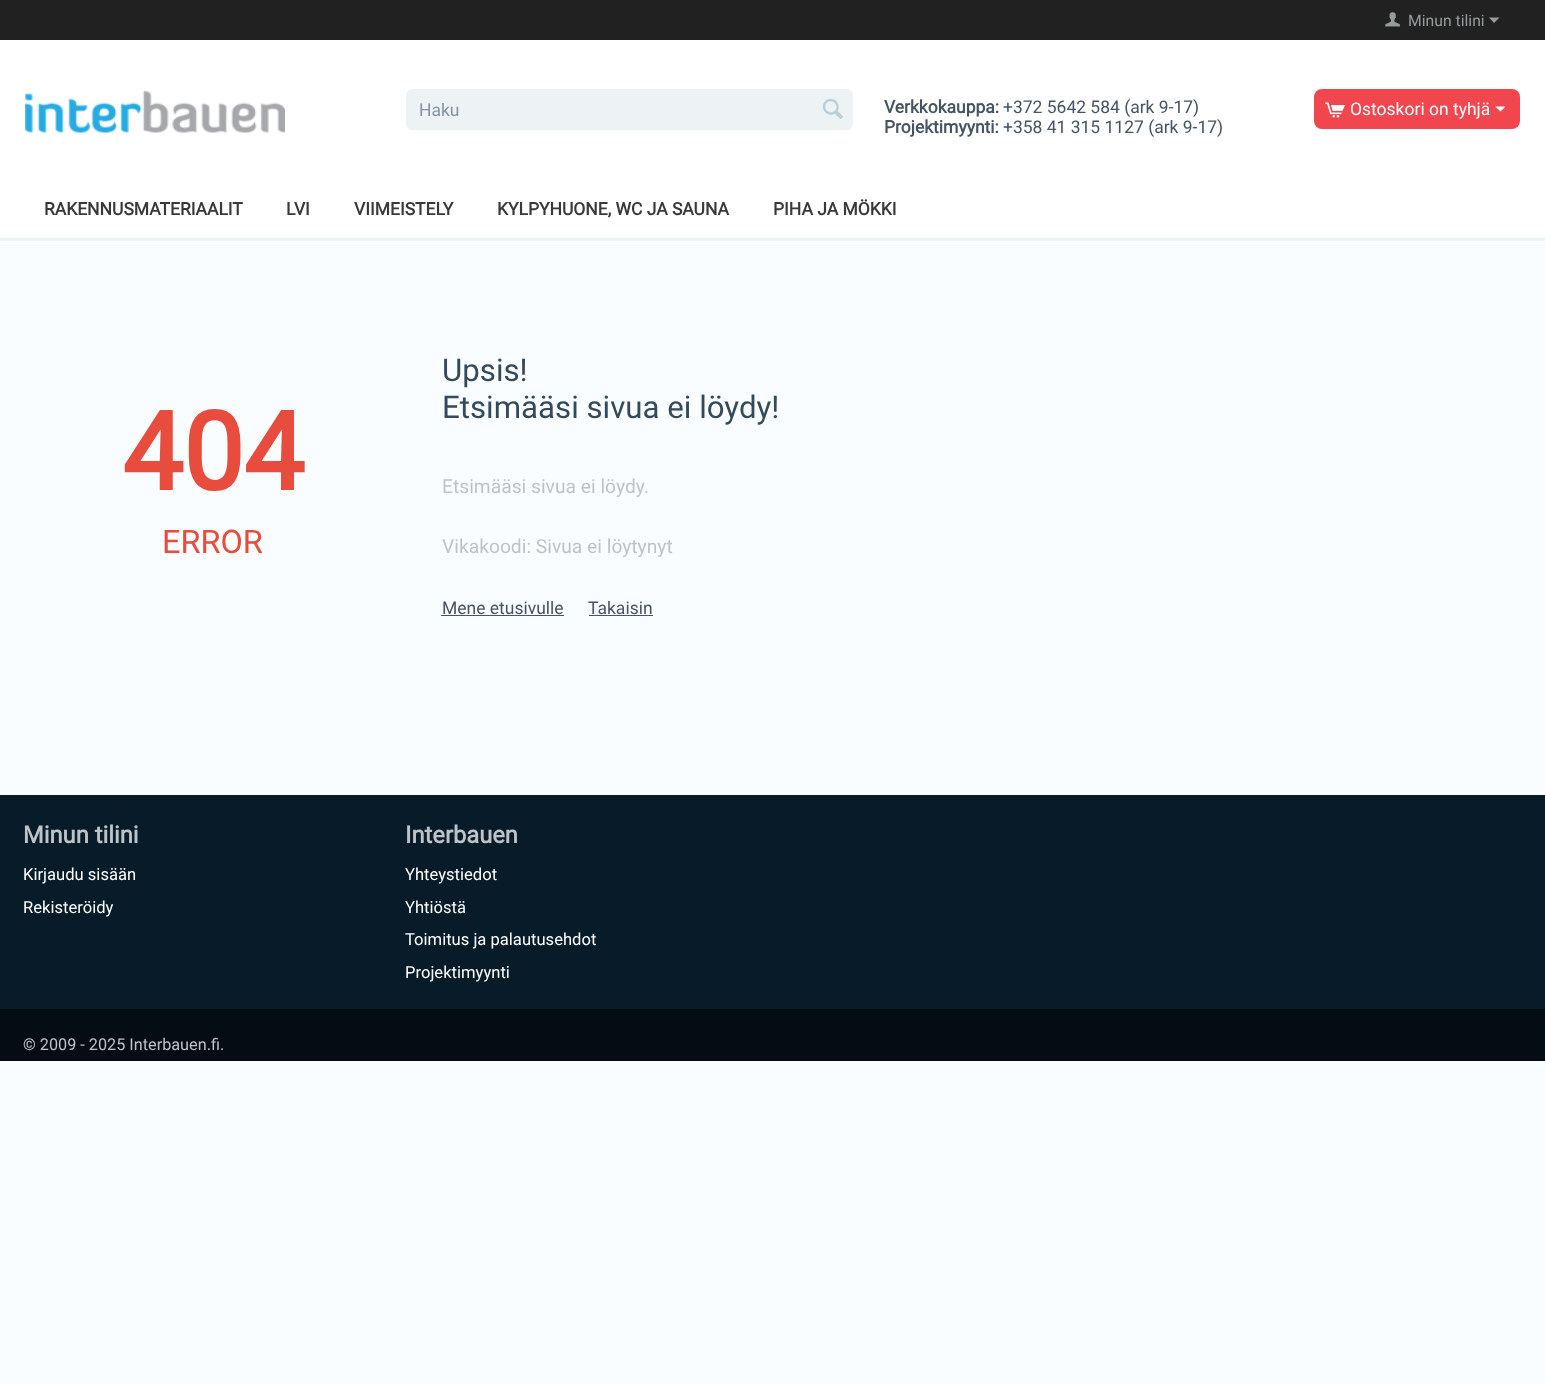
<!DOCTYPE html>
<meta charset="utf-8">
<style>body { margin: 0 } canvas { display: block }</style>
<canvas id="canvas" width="1545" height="1384"></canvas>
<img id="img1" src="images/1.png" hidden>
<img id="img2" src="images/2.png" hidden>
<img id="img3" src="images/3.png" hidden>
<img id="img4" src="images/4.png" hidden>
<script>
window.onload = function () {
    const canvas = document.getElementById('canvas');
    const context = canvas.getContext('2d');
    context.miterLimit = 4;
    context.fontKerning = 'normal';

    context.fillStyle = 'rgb(250, 253, 255)';
    context.fillRect(0, 0, 1545, 1384);
    context.fillStyle = 'rgb(33, 33, 33)';
    context.fillRect(0, 0, 1545, 40);
    context.drawImage(document.getElementById('img1'), 1385, 12, 16, 15);
    context.fillStyle = 'rgb(150, 155, 155)';
    context.beginPath();
    context.moveTo(1494, 23);
    context.lineTo(1489, 17.5);
    context.lineTo(1499.5, 17.5);
    context.closePath();
    context.fill();
    context.fillStyle = 'rgb(255, 255, 255)';
    context.fillRect(0, 40, 1545, 198);
    context.drawImage(document.getElementById('img2'), 25, 91, 260, 42);
    context.fillStyle = 'rgb(237, 242, 245)';
    context.beginPath();
    context.roundRect(407.5, 90.5, 444, 38, 4.5);
    context.fill();
    context.strokeStyle = 'rgb(237, 242, 245)';
    context.lineWidth = 3;
    context.stroke();
    context.drawImage(document.getElementById('img3'), 822, 98, 21, 21);
    context.fillStyle = 'rgb(242, 70, 78)';
    context.beginPath();
    context.roundRect(1314, 89, 206, 40, 8);
    context.fill();
    context.drawImage(document.getElementById('img4'), 1325, 102, 20, 16);
    context.fillStyle = 'rgb(255, 255, 255)';
    context.beginPath();
    context.moveTo(1500.5, 111.5);
    context.lineTo(1495, 106.5);
    context.lineTo(1505.5, 106.5);
    context.closePath();
    context.fill();
    context.fillStyle = 'rgb(237, 242, 245)';
    context.fillRect(0, 238, 1545, 3);
    context.fillStyle = 'rgb(70, 83, 99)';
    context.fillRect(441, 615, 123, 1);
    context.fillRect(589, 615, 64, 1);
    context.fillStyle = 'rgb(8, 27, 41)';
    context.fillRect(0, 795, 1545, 214);
    context.fillStyle = 'rgb(4, 13, 20)';
    context.fillRect(0, 1009, 1545, 52);
    context.font = '15.75px Roboto';
    context.fillStyle = 'rgb(150, 155, 155)';
    context.fillText('Minun tilini', 1408, 26);
    context.font = '17.5px Roboto';
    context.fillStyle = 'rgb(130, 146, 167)';
    context.fillText('Haku', 419, 116);
    context.font = 'bold 17.5px Roboto';
    context.fillStyle = 'rgb(70, 83, 99)';
    context.fillText('Verkkokauppa:', 884, 113);
    context.font = '17.5px Roboto';
    context.fillText('+372 5642 584 (ark 9-17)', 1003, 113);
    context.font = 'bold 17.5px Roboto';
    context.fillText('Projektimyynti:', 884, 133);
    context.font = '17.5px Roboto';
    context.fillText('+358 41 315 1127 (ark 9-17)', 1003, 133);
    context.fillStyle = 'rgb(255, 255, 255)';
    context.fillText('Ostoskori on tyhjä', 1350, 115);
    context.font = 'bold 17.5px Roboto';
    context.fillStyle = 'rgb(57, 57, 57)';
    context.fillText('RAKENNUSMATERIAALIT', 44, 215);
    context.fillText('LVI', 286, 215);
    context.fillText('VIIMEISTELY', 354, 215);
    context.fillText('KYLPYHUONE, WC JA SAUNA', 497, 215);
    context.fillText('PIHA JA MÖKKI', 773, 215);
    context.font = 'bold 108px Roboto';
    context.fillStyle = 'rgb(231, 76, 60)';
    context.fillText('404', 122, 490);
    context.font = '32.5px Roboto';
    context.fillText('ERROR', 162, 553);
    context.font = '31.25px Roboto';
    context.fillStyle = 'rgb(52, 73, 94)';
    context.fillText('Upsis!', 442, 381);
    context.fillText('Etsimääsi sivua ei löydy!', 442, 418);
    context.font = '19.25px Roboto';
    context.fillStyle = 'rgb(189, 195, 199)';
    context.fillText('Etsimääsi sivua ei löydy.', 442, 493);
    context.fillText('Vikakoodi: Sivua ei löytynyt', 442, 553);
    context.font = '17.5px Roboto';
    context.fillStyle = 'rgb(70, 83, 99)';
    context.fillText('Mene etusivulle', 442, 614);
    context.fillText('Takaisin', 588, 614);
    context.font = 'bold 23.75px Roboto';
    context.fillStyle = 'rgb(189, 195, 199)';
    context.fillText('Minun tilini', 23, 843);
    context.font = '16.6px Roboto';
    context.fillStyle = 'rgb(255, 255, 255)';
    context.fillText('Kirjaudu sisään', 23, 880);
    context.fillText('Rekisteröidy', 23, 913);
    context.font = 'bold 23.75px Roboto';
    context.fillStyle = 'rgb(189, 195, 199)';
    context.fillText('Interbauen', 405, 843);
    context.font = '16.6px Roboto';
    context.fillStyle = 'rgb(255, 255, 255)';
    context.fillText('Yhteystiedot', 405, 880);
    context.fillText('Yhtiöstä', 405, 913);
    context.fillText('Toimitus ja palautusehdot', 405, 945);
    context.fillText('Projektimyynti', 405, 978);
    context.font = '16.25px Roboto';
    context.fillStyle = 'rgb(189, 195, 199)';
    context.fillText('© 2009 - 2025 Interbauen.fi.', 23, 1050);
};
</script>
